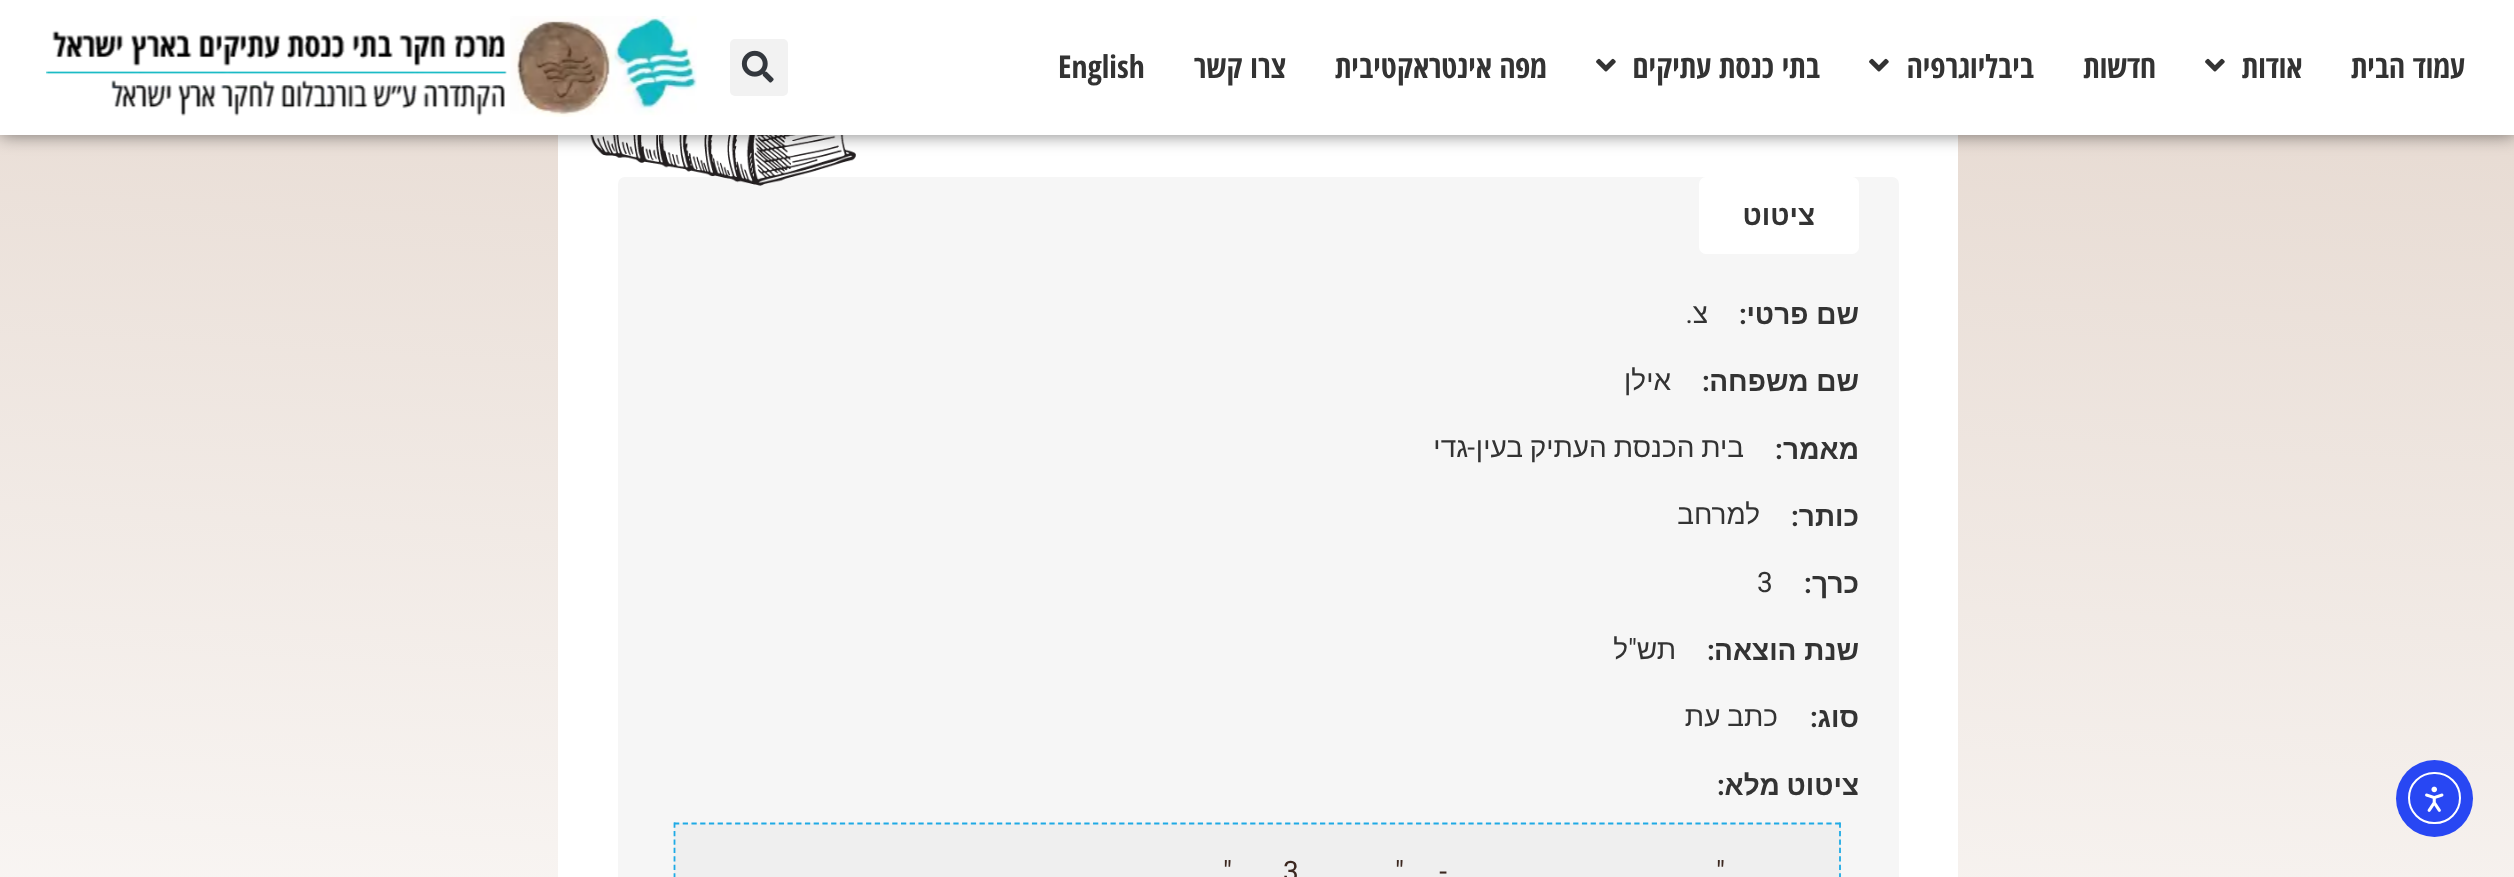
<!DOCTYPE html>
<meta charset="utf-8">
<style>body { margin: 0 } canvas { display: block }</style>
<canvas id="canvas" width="2514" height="877"></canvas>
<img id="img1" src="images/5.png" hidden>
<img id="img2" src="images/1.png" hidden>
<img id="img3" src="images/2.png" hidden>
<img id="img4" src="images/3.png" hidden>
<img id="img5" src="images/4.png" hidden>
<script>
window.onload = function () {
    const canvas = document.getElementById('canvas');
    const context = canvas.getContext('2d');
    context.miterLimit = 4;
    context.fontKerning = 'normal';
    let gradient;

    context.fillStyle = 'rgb(255, 255, 255)';
    context.fillRect(0, 0, 2514, 877);
    gradient = context.createLinearGradient(1333, -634, 1182, 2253);
    gradient.addColorStop(0, 'rgb(218, 199, 186)');
    gradient.addColorStop(0.67, 'rgb(255, 255, 255)');
    context.fillStyle = gradient;
    context.fillRect(0, 135, 2514, 742);
    context.fillStyle = 'rgb(255, 255, 255)';
    context.fillRect(558, 135, 1400, 742);
    context.fillStyle = 'rgb(246, 246, 246)';
    context.beginPath();
    context.roundRect(618, 177, 1281, 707, 7);
    context.fill();
    context.drawImage(document.getElementById('img1'), 590, 135, 266, 51);
    context.fillStyle = 'rgba(0, 0, 0, 0.5)';
    context.filter = 'blur(9px)';
    context.beginPath();
    context.rect(0, 0, 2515, 135);
    context.fill();
    context.filter = 'none';
    context.fillStyle = 'rgb(255, 255, 255)';
    context.fillRect(0, 0, 2514, 135);
    context.drawImage(document.getElementById('img2'), 2205, 58, 20, 14);
    context.drawImage(document.getElementById('img2'), 1869, 58, 20, 14);
    context.drawImage(document.getElementById('img2'), 1596, 58, 20, 14);
    context.fillStyle = 'rgb(242, 242, 242)';
    context.beginPath();
    context.roundRect(730, 39, 58, 57, 5);
    context.fill();
    context.drawImage(document.getElementById('img3'), 741, 50, 33, 33);
    context.drawImage(document.getElementById('img4'), 46, 16, 651, 101);
    context.fillStyle = 'rgb(40, 71, 243)';
    context.beginPath();
    context.arc(2434.5, 798.5, 38.5, 0, 2 * Math.PI);
    context.fill();
    context.beginPath();
    context.roundRect(2409, 773, 51, 50, 25);
    context.strokeStyle = 'rgb(255, 255, 255)';
    context.lineWidth = 2;
    context.stroke();
    context.drawImage(document.getElementById('img5'), 2425, 786, 19, 26);
    context.fillStyle = 'rgb(255, 255, 255)';
    context.beginPath();
    context.roundRect(1699, 177, 160, 77, 7);
    context.fill();
    context.fillStyle = 'rgb(239, 239, 239)';
    context.fillRect(674, 823, 1167, 54);
    context.beginPath();
    context.moveTo(674, 823.5);
    context.lineTo(1841, 823.5);
    context.strokeStyle = 'rgb(30, 170, 229)';
    context.lineWidth = 1.8;
    context.setLineDash([5.25, 3.48]);
    context.stroke();
    context.beginPath();
    context.moveTo(1840, 822.5);
    context.lineTo(1840, 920.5);
    context.setLineDash([5.25, 3.19]);
    context.stroke();
    context.beginPath();
    context.moveTo(674.5, 822.5);
    context.lineTo(674.5, 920.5);
    context.stroke();
    context.direction = 'rtl';
    context.font = 'bold 31.5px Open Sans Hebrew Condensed';
    context.fillStyle = 'rgb(51, 51, 51)';
    context.fillText('עמוד הבית', 2465, 78);
    context.fillText('אודות', 2302, 78);
    context.fillText('חדשות', 2156, 78);
    context.fillText('ביבליוגרפיה', 2034, 78);
    context.fillText('בתי כנסת עתיקים', 1820, 78);
    context.fillText('מפה אינטראקטיבית', 1547, 78);
    context.fillText('צרו קשר', 1286, 78);
    context.direction = 'ltr';
    context.fillText('English', 1058, 78);
    context.direction = 'rtl';
    context.font = 'bold 28px Liberation Sans';
    context.fillText('ציטוט', 1815, 225);
    context.fillText('שם פרטי', 1859, 324);
    context.font = 'bold 28px Roboto';
    context.fillText(':', 1747, 324);
    context.font = '28px Liberation Sans';
    context.fillText('צ', 1708, 323);
    context.font = '28px Roboto';
    context.fillText('.', 1693, 323);
    context.font = 'bold 28px Liberation Sans';
    context.fillText('שם משפחה', 1859, 391);
    context.font = 'bold 28px Roboto';
    context.fillText(':', 1710, 391);
    context.font = '28px Liberation Sans';
    context.fillText('אילן', 1671, 390);
    context.font = 'bold 28px Liberation Sans';
    context.fillText('מאמר', 1859, 459);
    context.font = 'bold 28px Roboto';
    context.fillText(':', 1783, 459);
    context.wordSpacing = '-1px';
    context.font = '28px Liberation Sans';
    context.fillText('בית הכנסת העתיק בעין', 1744, 457);
    context.wordSpacing = '0px';
    context.font = '28px Roboto';
    context.fillText('-', 1475, 457);
    context.font = '28px Liberation Sans';
    context.fillText('גדי', 1468, 457);
    context.font = 'bold 28px Liberation Sans';
    context.fillText('כותר', 1859, 526);
    context.font = 'bold 28px Roboto';
    context.fillText(':', 1799, 526);
    context.font = '28px Liberation Sans';
    context.fillText('למרחב', 1760, 524);
    context.font = 'bold 28px Liberation Sans';
    context.fillText('כרך', 1859, 593);
    context.font = 'bold 28px Roboto';
    context.fillText(':', 1812, 593);
    context.direction = 'ltr';
    context.font = '28px Roboto';
    context.fillText('3', 1757, 592);
    context.direction = 'rtl';
    context.font = 'bold 28px Liberation Sans';
    context.fillText('שנת הוצאה', 1859, 660);
    context.font = 'bold 28px Roboto';
    context.fillText(':', 1715, 660);
    context.font = '28px Liberation Sans';
    context.fillText('תש', 1676, 659);
    context.font = '28px Roboto';
    context.fillText('"', 1637, 659);
    context.font = '28px Liberation Sans';
    context.fillText('ל', 1628, 659);
    context.font = 'bold 28px Liberation Sans';
    context.fillText('סוג', 1859, 727);
    context.font = 'bold 28px Roboto';
    context.fillText(':', 1818, 727);
    context.wordSpacing = '-1px';
    context.font = '28px Liberation Sans';
    context.fillText('כתב עת', 1778, 726);
    context.font = 'bold 28px Liberation Sans';
    context.fillText('ציטוט מלא', 1859, 795);
    context.wordSpacing = '0px';
    context.font = 'bold 28px Roboto';
    context.fillText(':', 1725, 795);
    context.font = '28px Roboto';
    context.fillStyle = 'rgb(60, 40, 32)';
    context.fillText('"', 1725, 881);
    context.fillText('"', 1404, 881);
    context.direction = 'ltr';
    context.fillText('3', 1283, 881);
    context.direction = 'rtl';
    context.fillText('"', 1232, 881);
    context.fillText('-', 1447, 881);
};
</script>
